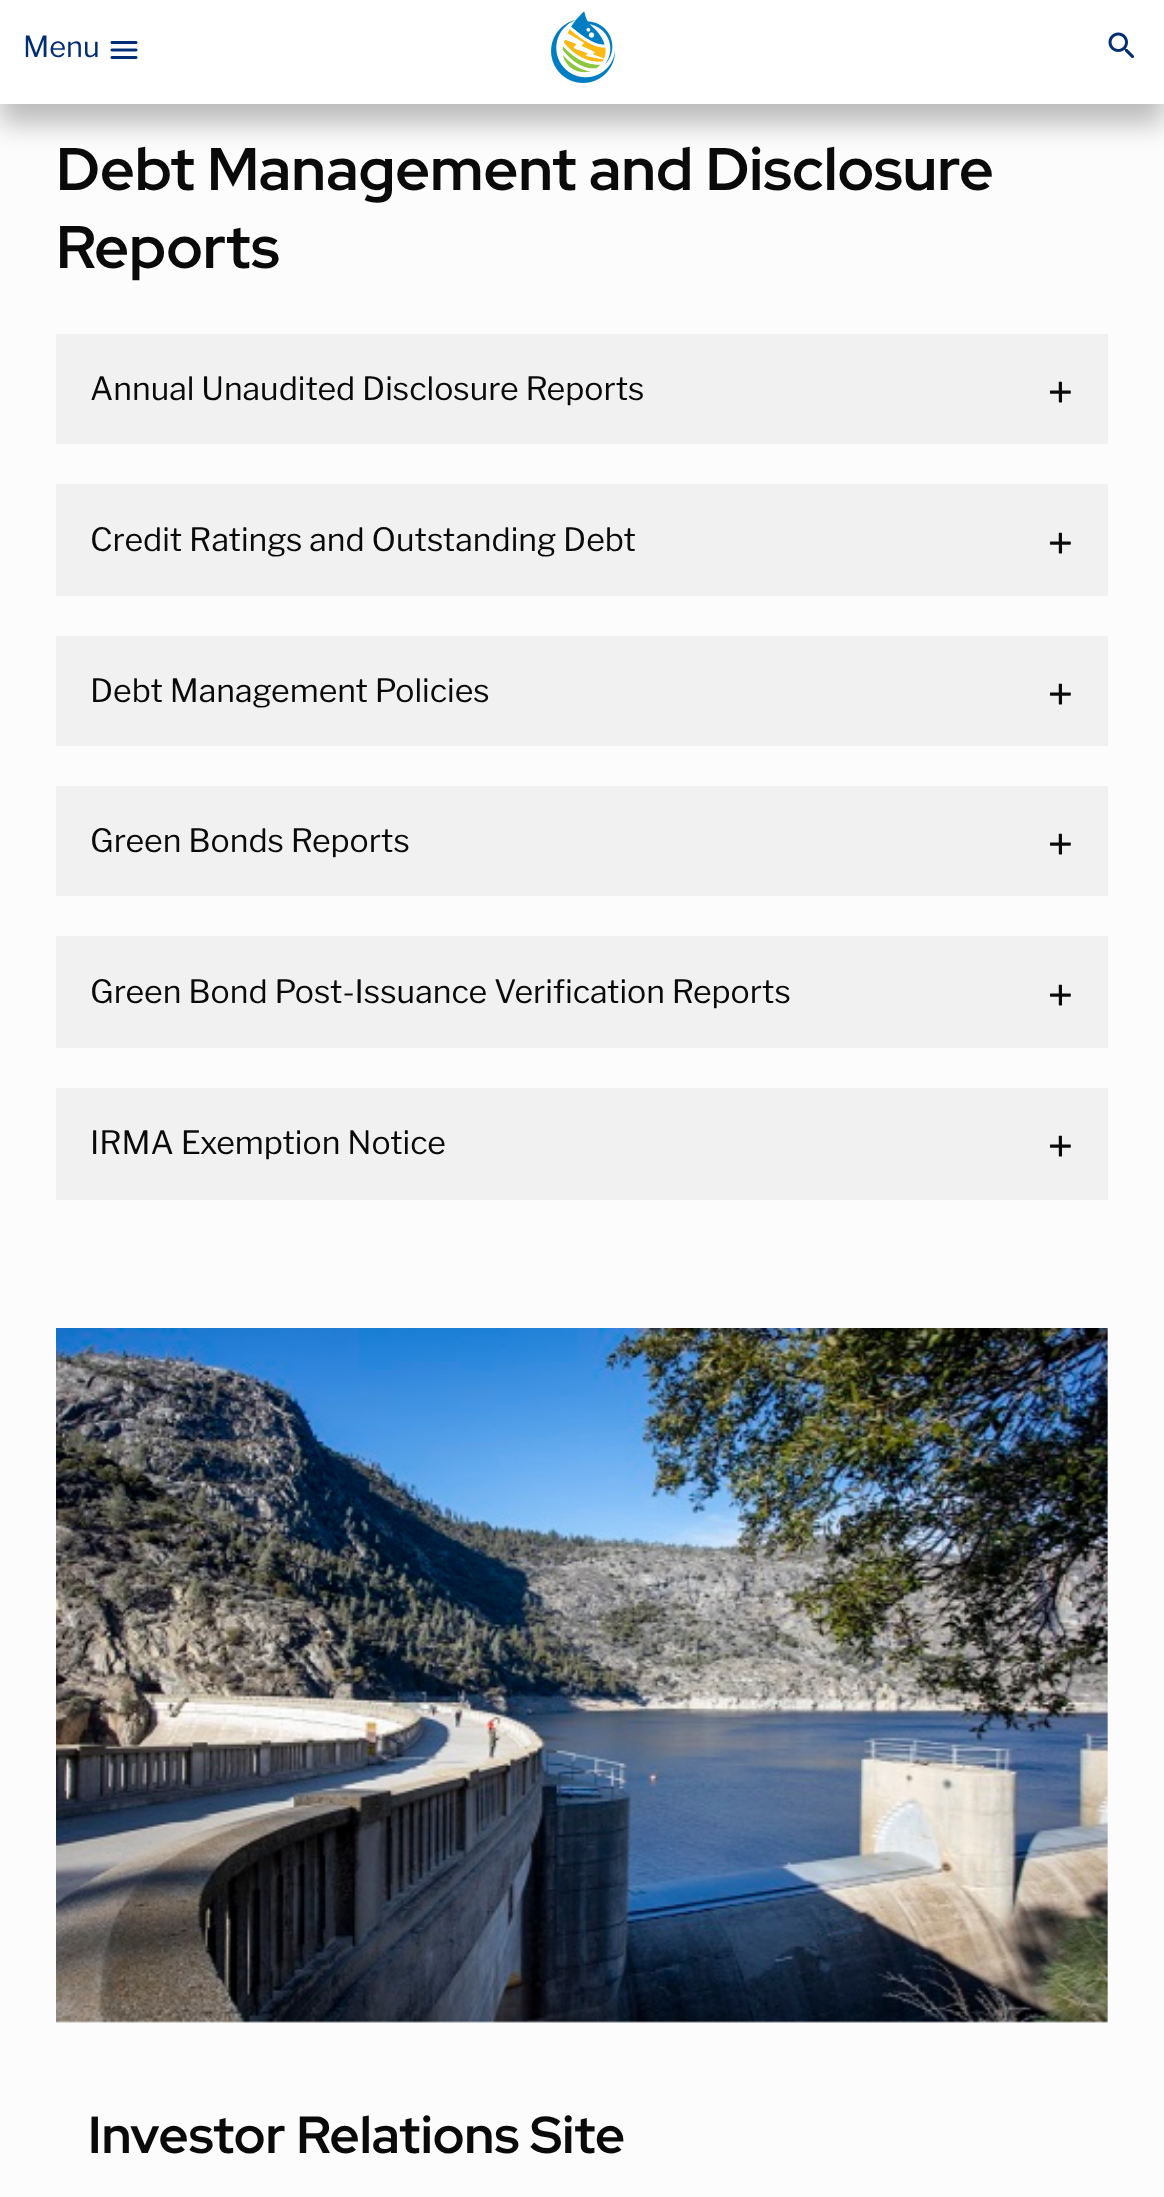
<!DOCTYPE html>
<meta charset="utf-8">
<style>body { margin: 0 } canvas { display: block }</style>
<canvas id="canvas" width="1164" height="2197"></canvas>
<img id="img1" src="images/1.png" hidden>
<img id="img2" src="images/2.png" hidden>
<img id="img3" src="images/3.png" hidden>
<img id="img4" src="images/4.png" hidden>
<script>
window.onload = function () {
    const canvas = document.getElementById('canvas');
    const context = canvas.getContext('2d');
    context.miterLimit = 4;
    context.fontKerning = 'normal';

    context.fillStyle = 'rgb(252, 252, 252)';
    context.fillRect(0, 0, 1164, 2197);
    context.fillStyle = 'rgba(0, 0, 0, 0.25)';
    context.filter = 'blur(13px)';
    context.beginPath();
    context.rect(0, 20, 1164, 104);
    context.fill();
    context.filter = 'none';
    context.fillStyle = 'rgb(255, 255, 255)';
    context.fillRect(0, 0, 1164, 104);
    context.drawImage(document.getElementById('img1'), 110, 41, 28, 18);
    context.drawImage(document.getElementById('img2'), 1108, 32, 27, 27);
    context.drawImage(document.getElementById('img3'), 551, 11, 64, 72);
    context.fillStyle = 'rgb(241, 241, 241)';
    context.fillRect(56, 334, 1052, 110);
    context.fillRect(56, 484, 1052, 112);
    context.fillRect(56, 636, 1052, 110);
    context.fillRect(56, 786, 1052, 110);
    context.fillRect(56, 936, 1052, 112);
    context.fillRect(56, 1088, 1052, 112);
    context.drawImage(document.getElementById('img4'), 56, 1328, 1052, 695);
    context.font = '29px Libre Franklin';
    context.fillStyle = 'rgb(0, 45, 116)';
    context.fillText('Menu', 23, 57);
    context.font = 'bold 60px Red Hat Display';
    context.fillStyle = 'rgb(10, 10, 10)';
    context.fillText('Debt Management and Disclosure', 56, 190);
    context.fillText('Reports', 56, 268);
    context.font = '32px Libre Franklin';
    context.fillText('Annual Unaudited Disclosure Reports', 90, 400);
    context.font = '48px Libre Franklin';
    context.fillText('+', 1047, 410);
    context.font = '32px Libre Franklin';
    context.fillText('Credit Ratings and Outstanding Debt', 90, 551);
    context.font = '48px Libre Franklin';
    context.fillText('+', 1047, 561);
    context.font = '32px Libre Franklin';
    context.fillText('Debt Management Policies', 90, 702);
    context.font = '48px Libre Franklin';
    context.fillText('+', 1047, 712);
    context.font = '32px Libre Franklin';
    context.fillText('Green Bonds Reports', 90, 852);
    context.font = '48px Libre Franklin';
    context.fillText('+', 1047, 862);
    context.font = '32px Libre Franklin';
    context.fillText('Green Bond Post-Issuance Verification Reports', 90, 1003);
    context.font = '48px Libre Franklin';
    context.fillText('+', 1047, 1013);
    context.font = '32px Libre Franklin';
    context.fillText('IRMA Exemption Notice', 90, 1154);
    context.font = '48px Libre Franklin';
    context.fillText('+', 1047, 1164);
    context.font = 'bold 52px Red Hat Display';
    context.fillText('Investor Relations Site', 88, 2153);
};
</script>
